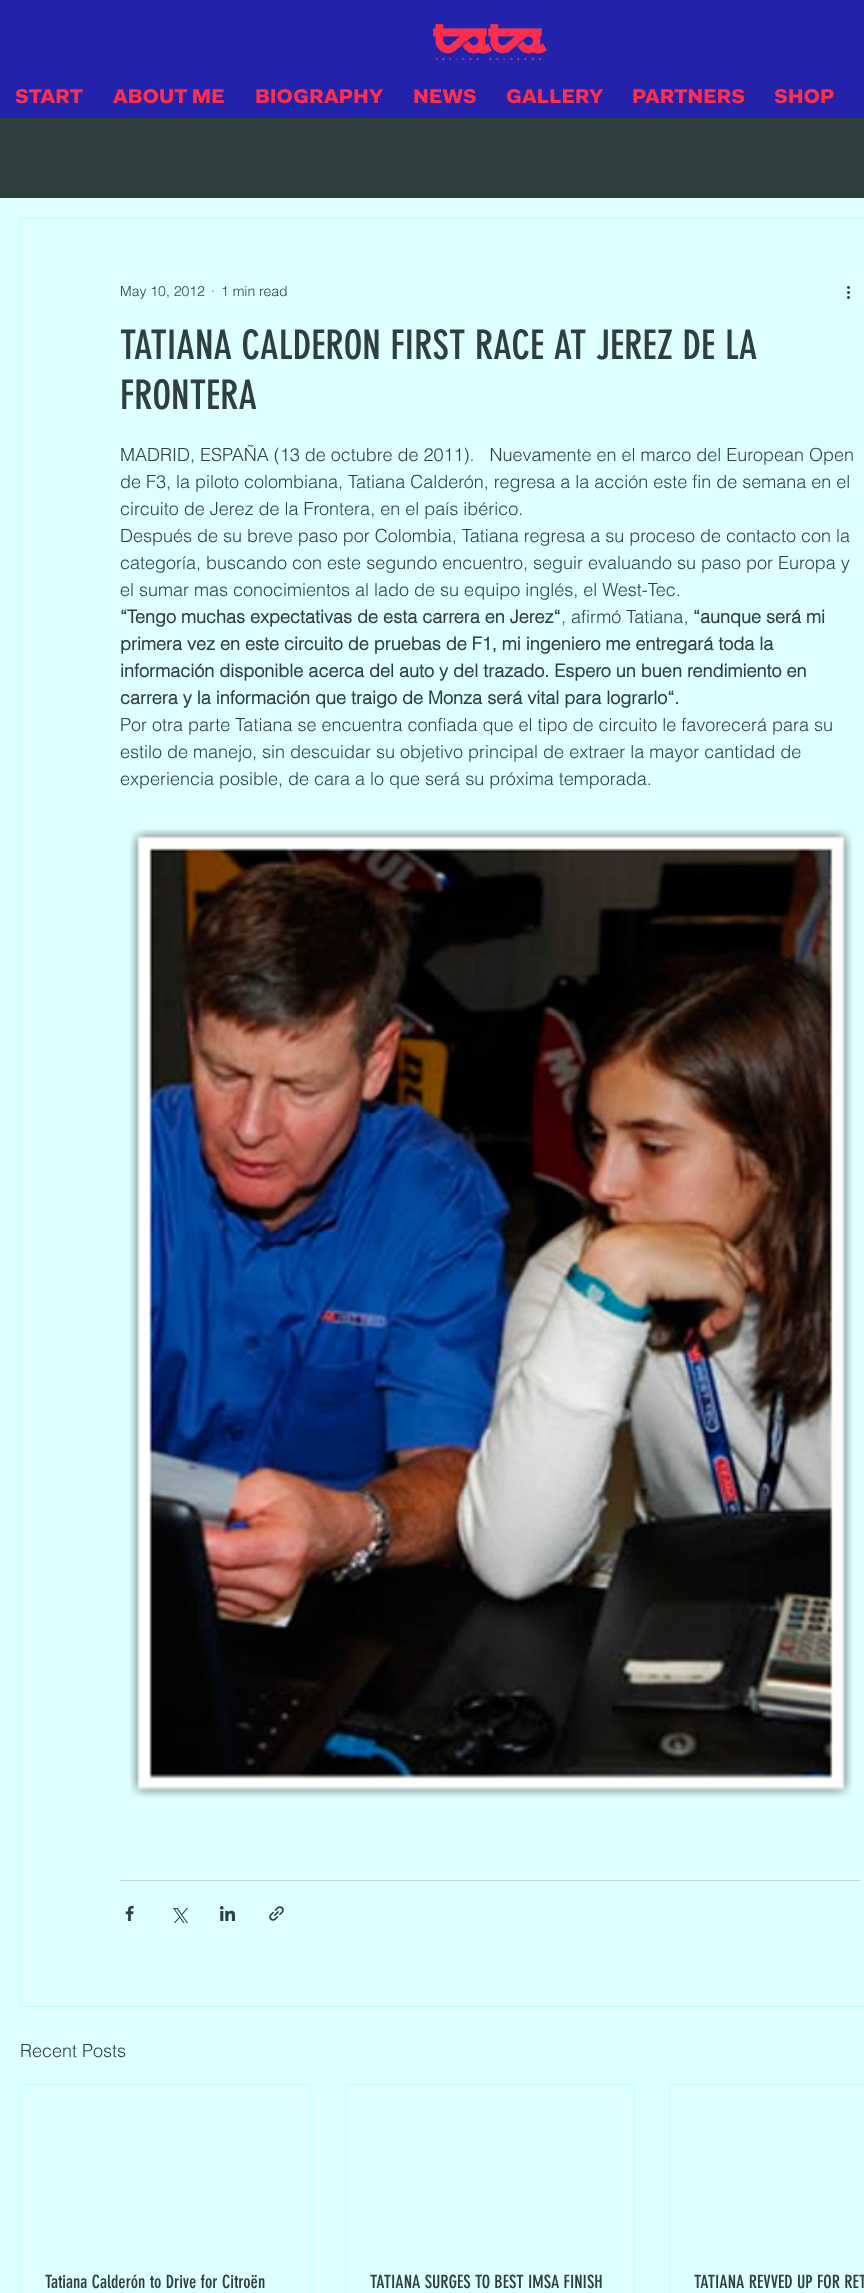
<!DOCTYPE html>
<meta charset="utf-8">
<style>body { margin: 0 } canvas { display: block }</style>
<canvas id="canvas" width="864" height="2293"></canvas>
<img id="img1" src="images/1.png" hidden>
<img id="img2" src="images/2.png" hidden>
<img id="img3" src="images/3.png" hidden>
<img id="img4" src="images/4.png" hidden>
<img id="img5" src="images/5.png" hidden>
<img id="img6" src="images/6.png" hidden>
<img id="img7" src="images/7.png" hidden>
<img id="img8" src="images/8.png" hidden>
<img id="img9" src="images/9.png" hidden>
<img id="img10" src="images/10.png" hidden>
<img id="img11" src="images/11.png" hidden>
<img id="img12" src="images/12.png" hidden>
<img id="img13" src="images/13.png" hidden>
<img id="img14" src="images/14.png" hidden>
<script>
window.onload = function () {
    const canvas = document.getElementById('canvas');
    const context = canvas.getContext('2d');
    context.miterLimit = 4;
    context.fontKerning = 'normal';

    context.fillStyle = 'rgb(222, 254, 255)';
    context.fillRect(0, 0, 864, 2293);
    context.fillStyle = 'rgb(34, 34, 170)';
    context.fillRect(0, 0, 864, 118);
    context.drawImage(document.getElementById('img1'), 433, 23, 114, 38);
    context.drawImage(document.getElementById('img2'), 15, 89, 68, 15);
    context.drawImage(document.getElementById('img3'), 113, 89, 111, 15);
    context.drawImage(document.getElementById('img4'), 256, 89, 128, 15);
    context.drawImage(document.getElementById('img5'), 414, 89, 62, 15);
    context.drawImage(document.getElementById('img6'), 506, 89, 98, 15);
    context.drawImage(document.getElementById('img7'), 633, 89, 112, 15);
    context.drawImage(document.getElementById('img8'), 774, 89, 60, 15);
    context.fillStyle = 'rgb(47, 63, 64)';
    context.fillRect(0, 118, 864, 80);
    context.strokeStyle = 'rgb(197, 253, 255)';
    context.strokeRect(20.5, 218.5, 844, 1788);
    context.drawImage(document.getElementById('img9'), 847, 286, 3, 13);
    context.drawImage(document.getElementById('img10'), 130, 829, 722, 969);
    context.fillStyle = 'rgb(187, 216, 217)';
    context.fillRect(120, 1880, 740, 1);
    context.drawImage(document.getElementById('img11'), 125, 1906, 9, 15);
    context.drawImage(document.getElementById('img12'), 173, 1908, 15, 15);
    context.drawImage(document.getElementById('img13'), 220, 1906, 15, 15);
    context.drawImage(document.getElementById('img14'), 269, 1906, 15, 15);
    context.strokeRect(20.5, 2084.5, 290, 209);
    context.strokeRect(345.5, 2084.5, 289, 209);
    context.strokeRect(669.5, 2084.5, 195, 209);
    context.font = '300 14px helvetica';
    context.fillStyle = 'rgb(47, 63, 64)';
    context.fillText('May 10, 2012', 120, 296);
    context.fillText('·', 211, 296);
    context.fillText('1 min read', 221, 296);
    context.font = '40px "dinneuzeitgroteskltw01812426"';
    context.fillText('TATIANA CALDERON FIRST RACE AT JEREZ DE LA', 120, 359);
    context.fillText('FRONTERA', 120, 409);
    context.font = '300 18px helvetica';
    context.fillText('MADRID, ESPAÑA (13 de octubre de 2011).   Nuevamente en el marco del European Open', 120, 461);
    context.fillText('de F3, la piloto colombiana, Tatiana Calderón, regresa a la acción este fin de semana en el', 120, 488);
    context.fillText('circuito de Jerez de la Frontera, en el país ibérico.', 120, 515);
    context.fillText('Después de su breve paso por Colombia, Tatiana regresa a su proceso de contacto con la', 120, 542);
    context.fillText('categoría, buscando con este segundo encuentro, seguir evaluando su paso por Europa y', 120, 569);
    context.fillText('el sumar mas conocimientos al lado de su equipo inglés, el West-Tec.', 120, 596);
    context.font = 'bold 18px helvetica';
    context.fillText('“Tengo muchas expectativas de esta carrera en Jerez“', 120, 623);
    context.font = '300 18px helvetica';
    context.fillText(', afirmó Tatiana,', 561, 623);
    context.font = 'bold 18px helvetica';
    context.fillText('“aunque será mi', 693, 623);
    context.fillText('primera vez en este circuito de pruebas de F1, mi ingeniero me entregará toda la', 120, 650);
    context.fillText('información disponible acerca del auto y del trazado. Espero un buen rendimiento en', 120, 677);
    context.fillText('carrera y la información que traigo de Monza será vital para lograrlo“.', 120, 704);
    context.font = '300 18px helvetica';
    context.fillText('Por otra parte Tatiana se encuentra confiada que el tipo de circuito le favorecerá para su', 120, 731);
    context.fillText('estilo de manejo, sin descuidar su objetivo principal de extraer la mayor cantidad de', 120, 758);
    context.fillText('experiencia posible, de cara a lo que será su próxima temporada.', 120, 785);
    context.fillText('Recent Posts', 20, 2057);
    context.font = '18px "dinneuzeitgroteskltw01812426"';
    context.fillText('Tatiana Calderón to Drive for Citroën', 45, 2288);
    context.fillText('TATIANA SURGES TO BEST IMSA FINISH', 370, 2288);
    context.fillText('TATIANA REVVED UP FOR RET', 694, 2288);
};
</script>
